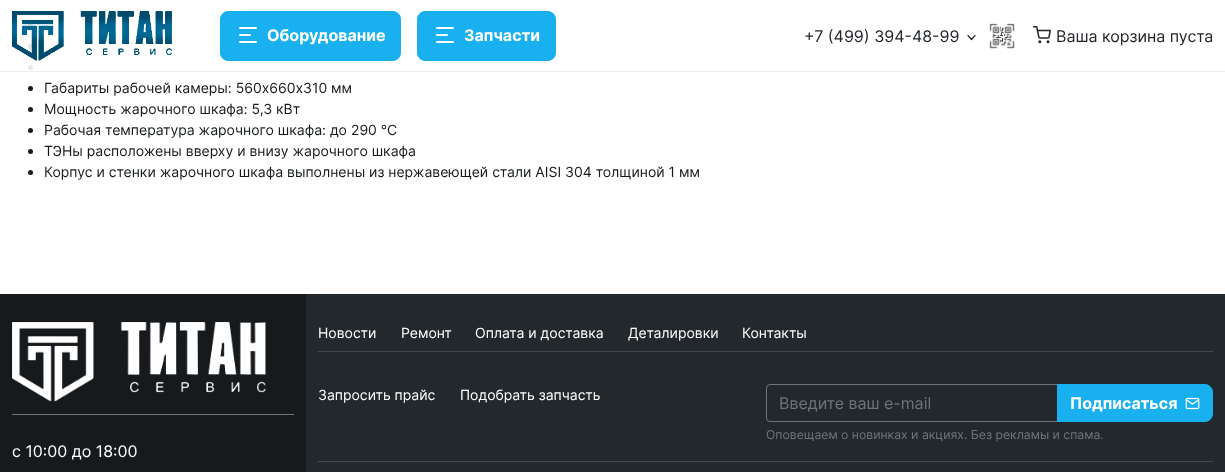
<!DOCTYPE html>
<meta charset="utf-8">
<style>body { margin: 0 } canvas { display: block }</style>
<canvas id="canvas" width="1225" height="472"></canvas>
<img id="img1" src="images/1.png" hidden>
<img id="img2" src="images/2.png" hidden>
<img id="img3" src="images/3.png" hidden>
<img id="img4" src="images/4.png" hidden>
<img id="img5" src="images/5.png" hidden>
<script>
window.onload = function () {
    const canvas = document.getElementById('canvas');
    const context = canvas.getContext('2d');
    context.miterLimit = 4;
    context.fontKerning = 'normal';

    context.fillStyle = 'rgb(255, 255, 255)';
    context.fillRect(0, 0, 1225, 472);
    context.fillStyle = 'rgb(22, 26, 29)';
    context.beginPath();
    context.arc(30.5, 25.5, 2.5, 0, 2 * Math.PI);
    context.fill();
    context.beginPath();
    context.arc(30.5, 46.5, 2.5, 0, 2 * Math.PI);
    context.fill();
    context.beginPath();
    context.arc(30.5, 67.5, 2.5, 0, 2 * Math.PI);
    context.fill();
    context.fillStyle = 'rgba(255, 255, 255, 0.9)';
    context.fillRect(28, 23, 5, 47);
    context.fillStyle = 'rgba(0, 0, 0, 0.07)';
    context.fillRect(0, 71, 1225, 1);
    context.drawImage(document.getElementById('img1'), 12, 11, 160, 50);
    context.fillStyle = 'rgb(25, 176, 239)';
    context.beginPath();
    context.roundRect(220.5, 11.5, 180, 49, 7.5);
    context.fill();
    context.strokeStyle = 'rgb(25, 176, 239)';
    context.stroke();
    context.fillStyle = 'rgb(255, 255, 255)';
    context.beginPath();
    context.roundRect(239, 27, 18, 2, 1);
    context.fill();
    context.beginPath();
    context.roundRect(239, 34, 12, 2, 1);
    context.fill();
    context.beginPath();
    context.roundRect(239, 41, 18, 2, 1);
    context.fill();
    context.fillStyle = 'rgb(25, 176, 239)';
    context.beginPath();
    context.roundRect(417.5, 11.5, 138, 49, 7.5);
    context.fill();
    context.stroke();
    context.fillStyle = 'rgb(255, 255, 255)';
    context.beginPath();
    context.roundRect(436, 27, 18, 2, 1);
    context.fill();
    context.beginPath();
    context.roundRect(436, 34, 12, 2, 1);
    context.fill();
    context.beginPath();
    context.roundRect(436, 41, 18, 2, 1);
    context.fill();
    context.beginPath();
    context.moveTo(968, 35.5);
    context.lineTo(971.5, 39.5);
    context.lineTo(975, 35.5);
    context.strokeStyle = 'rgb(33, 37, 41)';
    context.lineWidth = 1.2;
    context.lineCap = 'round';
    context.lineJoin = 'round';
    context.stroke();
    context.drawImage(document.getElementById('img2'), 989, 23, 26, 26);
    context.drawImage(document.getElementById('img3'), 1033, 26, 18, 18);
    context.fillStyle = 'rgb(22, 26, 29)';
    context.beginPath();
    context.arc(30.5, 88.5, 2.5, 0, 2 * Math.PI);
    context.fill();
    context.beginPath();
    context.arc(30.5, 109.5, 2.5, 0, 2 * Math.PI);
    context.fill();
    context.beginPath();
    context.arc(30.5, 130.5, 2.5, 0, 2 * Math.PI);
    context.fill();
    context.beginPath();
    context.arc(30.5, 151.5, 2.5, 0, 2 * Math.PI);
    context.fill();
    context.beginPath();
    context.arc(30.5, 172.5, 2.5, 0, 2 * Math.PI);
    context.fill();
    context.fillRect(0, 294, 306, 178);
    context.fillStyle = 'rgb(35, 40, 44)';
    context.fillRect(306, 294, 919, 178);
    context.fillStyle = 'rgb(68, 72, 76)';
    context.fillRect(318, 351, 895, 1);
    context.fillRect(318, 461, 895, 1);
    context.beginPath();
    context.roundRect(766.5, 384.5, 291, 37, [3.5, 0, 0, 3.5]);
    context.strokeStyle = 'rgb(108, 117, 125)';
    context.lineWidth = 1;
    context.lineJoin = 'miter';
    context.stroke();
    context.fillStyle = 'rgb(25, 176, 239)';
    context.beginPath();
    context.roundRect(1057.5, 384.5, 155, 37, [0, 7.5, 7.5, 0]);
    context.fill();
    context.strokeStyle = 'rgb(25, 176, 239)';
    context.stroke();
    context.drawImage(document.getElementById('img4'), 1185, 397, 15, 13);
    context.drawImage(document.getElementById('img5'), 12, 322, 254, 80);
    context.fillStyle = 'rgb(115, 118, 119)';
    context.fillRect(12, 414, 282, 1);
    context.font = 'bold 16px Inter';
    context.fillStyle = 'rgb(255, 255, 255)';
    context.fillText('Оборудование', 267, 41);
    context.fillText('Запчасти', 464, 41);
    context.font = '16px Inter';
    context.fillStyle = 'rgb(33, 37, 41)';
    context.fillText('+7 (499) 394-48-99', 804, 42);
    context.fillText('Ваша корзина пуста', 1056, 42);
    context.font = '14px Inter';
    context.fillStyle = 'rgb(22, 26, 29)';
    context.fillText('Габариты рабочей камеры: 560х660х310 мм', 44, 93);
    context.fillText('Мощность жарочного шкафа: 5,3 кВт', 44, 114);
    context.fillText('Рабочая температура жарочного шкафа: до 290 °C', 44, 135);
    context.fillText('ТЭНы расположены вверху и внизу жарочного шкафа', 44, 156);
    context.fillText('Корпус и стенки жарочного шкафа выполнены из нержавеющей стали AISI 304 толщиной 1 мм', 44, 177);
    context.fillStyle = 'rgb(255, 255, 255)';
    context.fillText('Новости', 318, 338);
    context.fillText('Ремонт', 401, 338);
    context.fillText('Оплата и доставка', 475, 338);
    context.fillText('Деталировки', 628, 338);
    context.fillText('Контакты', 742, 338);
    context.fillText('Запросить прайс', 318, 400);
    context.fillText('Подобрать запчасть', 460, 400);
    context.font = '16px Inter';
    context.fillStyle = 'rgb(108, 117, 125)';
    context.fillText('Введите ваш e-mail', 779, 409);
    context.font = 'bold 16px Inter';
    context.fillStyle = 'rgb(255, 255, 255)';
    context.fillText('Подписаться', 1070, 409);
    context.font = '12.25px Inter';
    context.fillStyle = 'rgb(108, 117, 125)';
    context.fillText('Оповещаем о новинках и акциях. Без рекламы и спама.', 766, 439);
    context.font = '16px Inter';
    context.fillStyle = 'rgb(255, 255, 255)';
    context.fillText('с 10:00 до 18:00', 12, 457);
};
</script>
